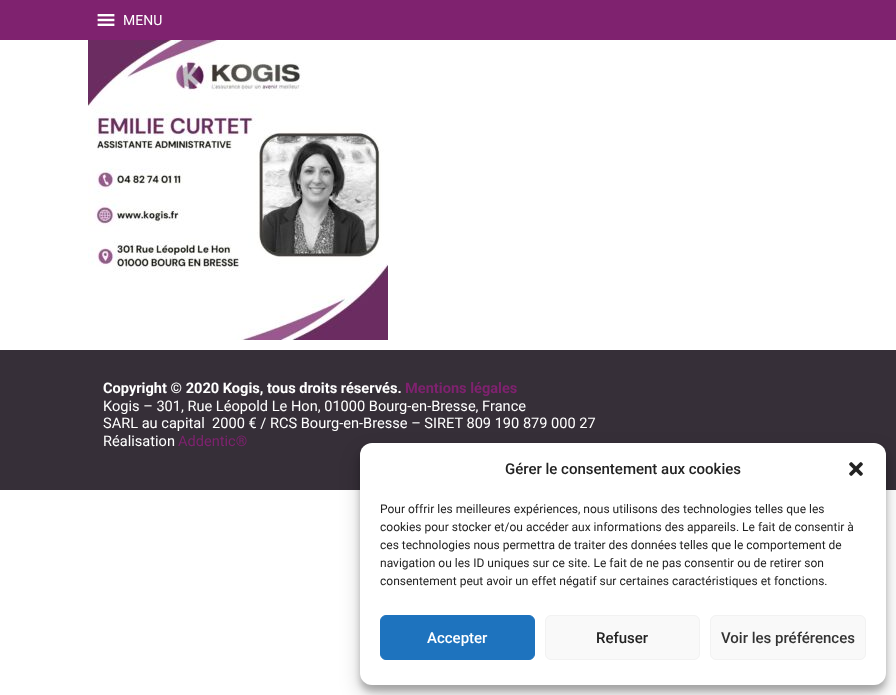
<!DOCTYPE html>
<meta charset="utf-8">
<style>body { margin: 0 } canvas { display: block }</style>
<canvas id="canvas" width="896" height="695"></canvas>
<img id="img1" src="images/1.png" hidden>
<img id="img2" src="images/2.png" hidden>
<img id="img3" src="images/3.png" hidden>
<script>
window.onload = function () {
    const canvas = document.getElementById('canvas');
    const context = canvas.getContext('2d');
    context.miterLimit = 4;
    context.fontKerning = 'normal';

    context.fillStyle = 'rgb(255, 255, 255)';
    context.fillRect(0, 0, 896, 695);
    context.fillStyle = 'rgb(127, 34, 111)';
    context.fillRect(0, 0, 896, 40);
    context.drawImage(document.getElementById('img1'), 97, 14, 18, 12);
    context.drawImage(document.getElementById('img2'), 88, 40, 300, 300);
    context.fillStyle = 'rgb(54, 47, 56)';
    context.fillRect(0, 350, 896, 140);
    context.fillStyle = 'rgba(0, 0, 0, 0.23)';
    context.filter = 'blur(3px)';
    context.beginPath();
    context.roundRect(360, 449, 526, 242, 12);
    context.fill();
    context.filter = 'none';
    context.fillStyle = 'rgba(0, 0, 0, 0.19)';
    context.filter = 'blur(10px)';
    context.beginPath();
    context.roundRect(360, 453, 526, 242, 12);
    context.fill();
    context.filter = 'none';
    context.fillStyle = 'rgb(255, 255, 255)';
    context.beginPath();
    context.roundRect(360, 443, 526, 242, 12);
    context.fill();
    context.drawImage(document.getElementById('img3'), 849, 462, 14, 14);
    context.fillStyle = 'rgb(30, 115, 190)';
    context.beginPath();
    context.roundRect(380.5, 615.5, 154, 44, 5.5);
    context.fill();
    context.strokeStyle = 'rgb(30, 115, 190)';
    context.stroke();
    context.fillStyle = 'rgb(249, 249, 249)';
    context.beginPath();
    context.roundRect(545.5, 615.5, 154, 44, 5.5);
    context.fill();
    context.strokeStyle = 'rgb(242, 242, 242)';
    context.stroke();
    context.beginPath();
    context.roundRect(710.5, 615.5, 155, 44, 5.5);
    context.fill();
    context.stroke();
    context.font = '14px Roboto';
    context.fillStyle = 'rgb(255, 255, 255)';
    context.fillText('MENU', 123, 25);
    context.font = 'bold 14.6px Roboto';
    context.fillText('Copyright © 2020 Kogis, tous droits réservés.', 103, 393);
    context.fillStyle = 'rgb(127, 34, 111)';
    context.fillText('Mentions légales', 405, 393);
    context.font = '14.6px Roboto';
    context.fillStyle = 'rgb(255, 255, 255)';
    context.fillText('Kogis – 301, Rue Léopold Le Hon, 01000 Bourg-en-Bresse, France', 103, 411);
    context.fillText('SARL au capital  2000 € / RCS Bourg-en-Bresse – SIRET 809 190 879 000 27', 103, 428);
    context.fillText('Réalisation', 103, 446);
    context.fillStyle = 'rgb(127, 34, 111)';
    context.fillText('Addentic®', 178, 446);
    context.font = '500 15px Roboto';
    context.fillStyle = 'rgb(34, 34, 34)';
    context.fillText('Gérer le consentement aux cookies', 505, 474);
    context.font = '12px Roboto';
    context.fillText('Pour offrir les meilleures expériences, nous utilisons des technologies telles que les', 380, 513);
    context.fillText('cookies pour stocker et/ou accéder aux informations des appareils. Le fait de consentir à', 380, 531);
    context.fillText('ces technologies nous permettra de traiter des données telles que le comportement de', 380, 549);
    context.fillText('navigation ou les ID uniques sur ce site. Le fait de ne pas consentir ou de retirer son', 380, 567);
    context.fillText('consentement peut avoir un effet négatif sur certaines caractéristiques et fonctions.', 380, 585);
    context.font = '500 15px Roboto';
    context.fillStyle = 'rgb(255, 255, 255)';
    context.fillText('Accepter', 427, 643);
    context.fillStyle = 'rgb(34, 34, 34)';
    context.fillText('Refuser', 596, 643);
    context.fillStyle = 'rgb(51, 51, 51)';
    context.fillText('Voir les préférences', 721, 643);
};
</script>
